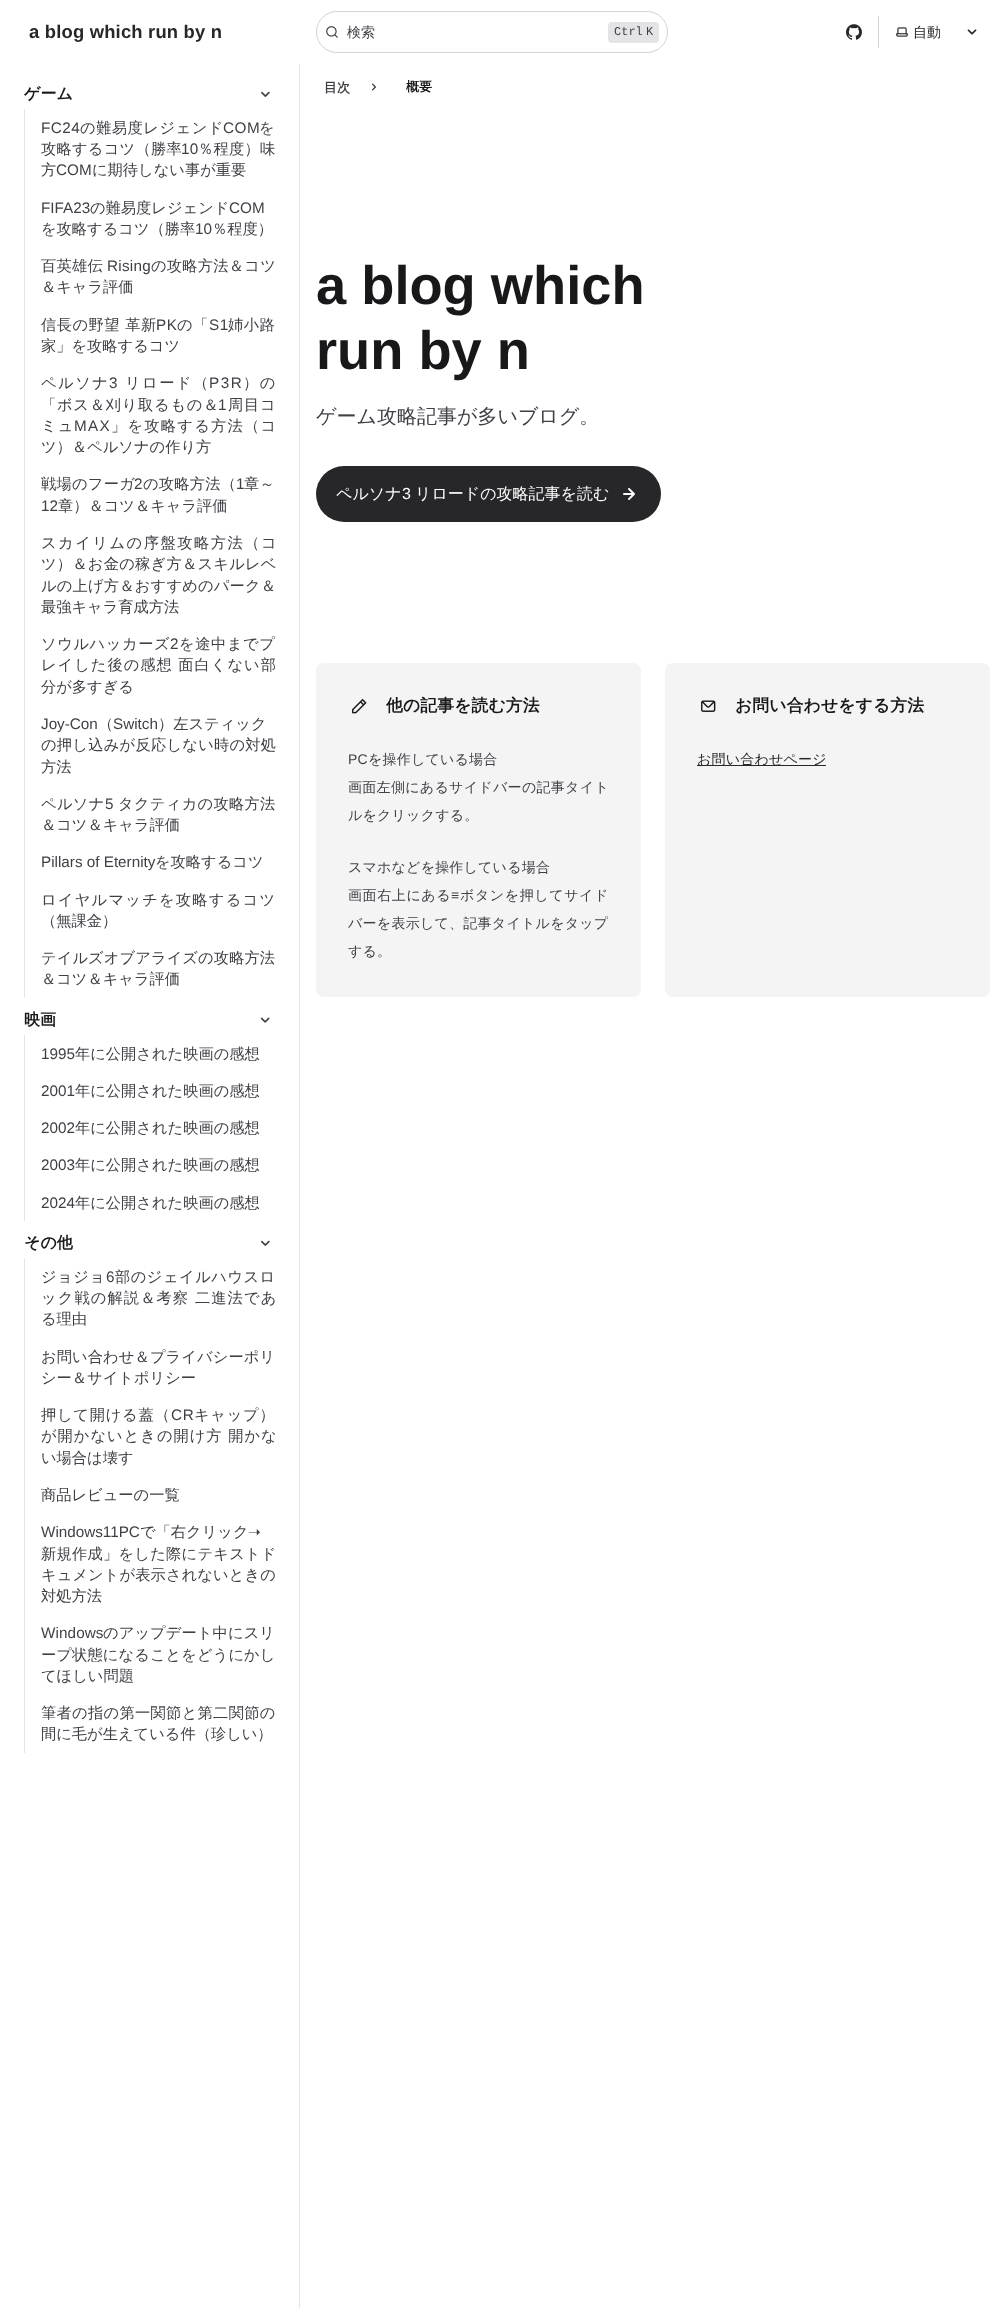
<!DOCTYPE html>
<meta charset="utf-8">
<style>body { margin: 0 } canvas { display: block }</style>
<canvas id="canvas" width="1006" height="2308"></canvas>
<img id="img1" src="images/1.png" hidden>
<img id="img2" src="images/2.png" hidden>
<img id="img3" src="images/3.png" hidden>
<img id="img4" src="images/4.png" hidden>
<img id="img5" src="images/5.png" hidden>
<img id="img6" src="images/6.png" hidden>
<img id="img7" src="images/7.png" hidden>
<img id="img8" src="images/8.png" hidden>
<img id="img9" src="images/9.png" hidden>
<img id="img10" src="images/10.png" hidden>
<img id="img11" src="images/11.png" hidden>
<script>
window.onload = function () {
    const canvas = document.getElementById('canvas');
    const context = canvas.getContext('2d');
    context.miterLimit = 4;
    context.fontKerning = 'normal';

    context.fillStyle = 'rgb(255, 255, 255)';
    context.fillRect(0, 0, 1006, 2308);
    context.beginPath();
    context.roundRect(316.5, 11.5, 351, 41, 20.5);
    context.strokeStyle = 'rgb(212, 212, 216)';
    context.stroke();
    context.drawImage(document.getElementById('img1'), 326, 26, 12, 12);
    context.fillStyle = 'rgb(228, 228, 231)';
    context.beginPath();
    context.roundRect(608, 22, 51, 21, 4);
    context.fill();
    context.drawImage(document.getElementById('img2'), 846, 24, 16, 16);
    context.fillStyle = 'rgb(212, 212, 216)';
    context.fillRect(878, 16, 1, 32);
    context.drawImage(document.getElementById('img3'), 896, 27, 12, 10);
    context.drawImage(document.getElementById('img4'), 967, 29, 10, 6);
    context.fillStyle = 'rgb(228, 228, 231)';
    context.fillRect(299, 64, 1, 2244);
    context.drawImage(document.getElementById('img5'), 261, 91, 9, 6);
    context.fillRect(24, 109, 1, 889);
    context.drawImage(document.getElementById('img6'), 260, 1017, 10, 6);
    context.fillRect(24, 1035, 1, 186);
    context.drawImage(document.getElementById('img7'), 261, 1240, 9, 6);
    context.fillRect(24, 1258, 1, 495);
    context.drawImage(document.getElementById('img8'), 372, 83, 4, 8);
    context.fillStyle = 'rgb(39, 39, 42)';
    context.beginPath();
    context.roundRect(316, 466, 345, 56, 28);
    context.fill();
    context.drawImage(document.getElementById('img9'), 623, 488, 12, 12);
    context.fillStyle = 'rgb(244, 244, 245)';
    context.beginPath();
    context.roundRect(316, 663, 325, 334, 8);
    context.fill();
    context.drawImage(document.getElementById('img10'), 352, 699, 15, 15);
    context.beginPath();
    context.roundRect(665, 663, 325, 334, 8);
    context.fill();
    context.drawImage(document.getElementById('img11'), 701, 700, 15, 12);
    context.fillStyle = 'rgb(39, 39, 42)';
    context.fillRect(697, 765, 129, 1);
    context.letterSpacing = '0.2px';
    context.font = 'bold 18.4px Liberation Sans';
    context.fillText('a blog which run by n', 29, 38);
    context.letterSpacing = '0px';
    context.font = '500 14px WenQuanYi Zen Hei';
    context.fillStyle = 'rgb(63, 63, 70)';
    context.fillText('検索', 347, 37);
    context.font = '12px Liberation Mono';
    context.fillText('Ctrl', 614, 35);
    context.fillText('K', 646, 35);
    context.font = '500 14px WenQuanYi Zen Hei';
    context.fillStyle = 'rgb(39, 39, 42)';
    context.fillText('自動', 913, 37);
    context.font = 'bold 16px WenQuanYi Zen Hei';
    context.fillStyle = 'rgb(24, 24, 27)';
    context.fillText('ゲーム', 24, 99);
    context.letterSpacing = '0.5px';
    context.font = '15.25px Liberation Sans';
    context.fillStyle = 'rgb(63, 63, 70)';
    context.fillText('FC24', 41, 133);
    context.font = '500 15.25px WenQuanYi Zen Hei';
    context.fillText('の難易度レジェンド', 80, 133);
    context.font = '15.25px Liberation Sans';
    context.fillText('COM', 223, 133);
    context.font = '500 15.25px WenQuanYi Zen Hei';
    context.fillText('を', 259, 133);
    context.letterSpacing = '0.25px';
    context.fillText('攻略するコツ（勝率', 41, 154);
    context.font = '15.25px Liberation Sans';
    context.fillText('10', 181, 154);
    context.font = '500 15.25px WenQuanYi Zen Hei';
    context.fillText('％程度）味', 198, 154);
    context.letterSpacing = '0px';
    context.fillText('方', 41, 175);
    context.font = '15.25px Liberation Sans';
    context.fillText('COM', 56, 175);
    context.font = '500 15.25px WenQuanYi Zen Hei';
    context.fillText('に期待しない事が重要', 92, 175);
    context.font = '15.25px Liberation Sans';
    context.fillText('FIFA23', 41, 213);
    context.font = '500 15.25px WenQuanYi Zen Hei';
    context.fillText('の難易度レジェンド', 90, 213);
    context.font = '15.25px Liberation Sans';
    context.fillText('COM', 229, 213);
    context.font = '500 15.25px WenQuanYi Zen Hei';
    context.fillText('を攻略するコツ（勝率', 41, 234);
    context.font = '15.25px Liberation Sans';
    context.fillText('10', 195, 234);
    context.font = '500 15.25px WenQuanYi Zen Hei';
    context.fillText('％程度）', 212, 234);
    context.letterSpacing = '0.25px';
    context.fillText('百英雄伝', 41, 271);
    context.font = '15.25px Liberation Sans';
    context.fillText('Rising', 107, 271);
    context.font = '500 15.25px WenQuanYi Zen Hei';
    context.fillText('の攻略方法＆コツ', 151, 271);
    context.letterSpacing = '0px';
    context.fillText('＆キャラ評価', 41, 292);
    context.letterSpacing = '0.5px';
    context.fillText('信長の野望 革新', 41, 330);
    context.font = '15.25px Liberation Sans';
    context.fillText('PK', 156, 330);
    context.font = '500 15.25px WenQuanYi Zen Hei';
    context.fillText('の「', 177, 330);
    context.font = '15.25px Liberation Sans';
    context.fillText('S1', 209, 330);
    context.font = '500 15.25px WenQuanYi Zen Hei';
    context.fillText('姉小路', 228, 330);
    context.letterSpacing = '0px';
    context.fillText('家」を攻略するコツ', 41, 351);
    context.letterSpacing = '1.5px';
    context.fillText('ペルソナ', 41, 388);
    context.font = '15.25px Liberation Sans';
    context.fillText('3', 109, 388);
    context.font = '500 15.25px WenQuanYi Zen Hei';
    context.fillText('リロード（', 125, 388);
    context.font = '15.25px Liberation Sans';
    context.fillText('P3R', 209, 388);
    context.font = '500 15.25px WenQuanYi Zen Hei';
    context.fillText('）の', 243, 388);
    context.letterSpacing = '0.75px';
    context.fillText('「ボス＆刈り取るもの＆', 41, 410);
    context.font = '15.25px Liberation Sans';
    context.fillText('1', 218, 410);
    context.font = '500 15.25px WenQuanYi Zen Hei';
    context.fillText('周目コ', 228, 410);
    context.letterSpacing = '1.25px';
    context.fillText('ミュ', 41, 431);
    context.font = '15.25px Liberation Sans';
    context.fillText('MAX', 74, 431);
    context.font = '500 15.25px WenQuanYi Zen Hei';
    context.fillText('」を攻略する方法（コ', 111, 431);
    context.letterSpacing = '0px';
    context.fillText('ツ）＆ペルソナの作り方', 41, 452);
    context.letterSpacing = '0.25px';
    context.fillText('戦場のフーガ', 41, 489);
    context.font = '15.25px Liberation Sans';
    context.fillText('2', 134, 489);
    context.font = '500 15.25px WenQuanYi Zen Hei';
    context.fillText('の攻略方法（', 143, 489);
    context.font = '15.25px Liberation Sans';
    context.fillText('1', 236, 489);
    context.font = '500 15.25px WenQuanYi Zen Hei';
    context.fillText('章～', 244, 489);
    context.letterSpacing = '0px';
    context.font = '15.25px Liberation Sans';
    context.fillText('12', 41, 511);
    context.font = '500 15.25px WenQuanYi Zen Hei';
    context.fillText('章）＆コツ＆キャラ評価', 58, 511);
    context.letterSpacing = '1.5px';
    context.fillText('スカイリムの序盤攻略方法（コ', 41, 548);
    context.letterSpacing = '0.25px';
    context.fillText('ツ）＆お金の稼ぎ方＆スキルレベ', 41, 569);
    context.letterSpacing = '0.2px';
    context.fillText('ルの上げ方＆おすすめのパーク＆', 41, 591);
    context.letterSpacing = '0px';
    context.fillText('最強キャラ育成方法', 41, 612);
    context.letterSpacing = '0.6px';
    context.fillText('ソウルハッカーズ', 41, 649);
    context.font = '15.25px Liberation Sans';
    context.fillText('2', 170, 649);
    context.font = '500 15.25px WenQuanYi Zen Hei';
    context.fillText('を途中までプ', 179, 649);
    context.letterSpacing = '1px';
    context.fillText('レイした後の感想 面白くない部', 41, 670);
    context.letterSpacing = '0px';
    context.fillText('分が多すぎる', 41, 692);
    context.font = '15.25px Liberation Sans';
    context.fillText('Joy-Con', 41, 729);
    context.font = '500 15.25px WenQuanYi Zen Hei';
    context.fillText('（', 98, 729);
    context.font = '15.25px Liberation Sans';
    context.fillText('Switch', 113, 729);
    context.font = '500 15.25px WenQuanYi Zen Hei';
    context.fillText('）左スティック', 158, 729);
    context.letterSpacing = '0.25px';
    context.fillText('の押し込みが反応しない時の対処', 41, 750);
    context.letterSpacing = '0px';
    context.fillText('方法', 41, 772);
    context.letterSpacing = '0.3px';
    context.fillText('ペルソナ', 41, 809);
    context.font = '15.25px Liberation Sans';
    context.fillText('5', 105, 809);
    context.font = '500 15.25px WenQuanYi Zen Hei';
    context.fillText('タクティカの攻略方法', 118, 809);
    context.letterSpacing = '0px';
    context.fillText('＆コツ＆キャラ評価', 41, 830);
    context.font = '15.25px Liberation Sans';
    context.fillText('Pillars of Eternity', 41, 867);
    context.font = '500 15.25px WenQuanYi Zen Hei';
    context.fillText('を攻略するコツ', 155, 867);
    context.letterSpacing = '1.25px';
    context.fillText('ロイヤルマッチを攻略するコツ', 41, 905);
    context.letterSpacing = '0px';
    context.fillText('（無課金）', 41, 926);
    context.letterSpacing = '0.1px';
    context.fillText('テイルズオブアライズの攻略方法', 41, 963);
    context.letterSpacing = '0px';
    context.fillText('＆コツ＆キャラ評価', 41, 984);
    context.font = 'bold 16px WenQuanYi Zen Hei';
    context.fillStyle = 'rgb(24, 24, 27)';
    context.fillText('映画', 24, 1025);
    context.font = '15.25px Liberation Sans';
    context.fillStyle = 'rgb(63, 63, 70)';
    context.fillText('1995', 41, 1059);
    context.font = '500 15.25px WenQuanYi Zen Hei';
    context.fillText('年に公開された映画の感想', 75, 1059);
    context.font = '15.25px Liberation Sans';
    context.fillText('2001', 41, 1096);
    context.font = '500 15.25px WenQuanYi Zen Hei';
    context.fillText('年に公開された映画の感想', 75, 1096);
    context.font = '15.25px Liberation Sans';
    context.fillText('2002', 41, 1133);
    context.font = '500 15.25px WenQuanYi Zen Hei';
    context.fillText('年に公開された映画の感想', 75, 1133);
    context.font = '15.25px Liberation Sans';
    context.fillText('2003', 41, 1170);
    context.font = '500 15.25px WenQuanYi Zen Hei';
    context.fillText('年に公開された映画の感想', 75, 1170);
    context.font = '15.25px Liberation Sans';
    context.fillText('2024', 41, 1208);
    context.font = '500 15.25px WenQuanYi Zen Hei';
    context.fillText('年に公開された映画の感想', 75, 1208);
    context.font = 'bold 16px WenQuanYi Zen Hei';
    context.fillStyle = 'rgb(24, 24, 27)';
    context.fillText('その他', 24, 1248);
    context.letterSpacing = '0.5px';
    context.font = '500 15.25px WenQuanYi Zen Hei';
    context.fillStyle = 'rgb(63, 63, 70)';
    context.fillText('ジョジョ', 41, 1282);
    context.font = '15.25px Liberation Sans';
    context.fillText('6', 106, 1282);
    context.font = '500 15.25px WenQuanYi Zen Hei';
    context.fillText('部のジェイルハウスロ', 115, 1282);
    context.letterSpacing = '1.1px';
    context.fillText('ック戦の解説＆考察 二進法であ', 41, 1303);
    context.letterSpacing = '0px';
    context.fillText('る理由', 41, 1324);
    context.letterSpacing = '0.1px';
    context.fillText('お問い合わせ＆プライバシーポリ', 41, 1362);
    context.letterSpacing = '0px';
    context.fillText('シー＆サイトポリシー', 41, 1383);
    context.letterSpacing = '0.75px';
    context.fillText('押して開ける蓋（', 41, 1420);
    context.font = '15.25px Liberation Sans';
    context.fillText('CR', 171, 1420);
    context.font = '500 15.25px WenQuanYi Zen Hei';
    context.fillText('キャップ）', 194, 1420);
    context.letterSpacing = '1px';
    context.fillText('が開かないときの開け方 開かな', 41, 1441);
    context.letterSpacing = '0px';
    context.fillText('い場合は壊す', 41, 1463);
    context.fillText('商品レビューの一覧', 41, 1500);
    context.font = '15.25px Liberation Sans';
    context.fillText('Windows11PC', 41, 1537);
    context.font = '500 15.25px WenQuanYi Zen Hei';
    context.fillText('で「右クリック', 140, 1537);
    context.font = '15.25px DejaVu Sans';
    context.fillText('➝', 248, 1537);
    context.letterSpacing = '0.25px';
    context.font = '500 15.25px WenQuanYi Zen Hei';
    context.fillText('新規作成」をした際にテキストド', 41, 1559);
    context.letterSpacing = '0.1px';
    context.fillText('キュメントが表示されないときの', 41, 1580);
    context.letterSpacing = '0px';
    context.fillText('対処方法', 41, 1601);
    context.letterSpacing = '0.1px';
    context.font = '15.25px Liberation Sans';
    context.fillText('Windows', 41, 1638);
    context.font = '500 15.25px WenQuanYi Zen Hei';
    context.fillText('のアップデート中にスリ', 103, 1638);
    context.fillText('ープ状態になることをどうにかし', 41, 1660);
    context.letterSpacing = '0px';
    context.fillText('てほしい問題', 41, 1681);
    context.letterSpacing = '0.3px';
    context.fillText('筆者の指の第一関節と第二関節の', 41, 1718);
    context.letterSpacing = '0px';
    context.fillText('間に毛が生えている件（珍しい）', 41, 1739);
    context.font = 'bold 13px WenQuanYi Zen Hei';
    context.fillText('目次', 324, 92);
    context.fillStyle = 'rgb(24, 24, 27)';
    context.fillText('概要', 406, 91);
    context.font = 'bold 54.25px Liberation Sans';
    context.fillText('a blog which', 316, 304);
    context.fillText('run by n', 316, 369);
    context.font = '500 20px WenQuanYi Zen Hei';
    context.fillStyle = 'rgb(63, 63, 70)';
    context.fillText('ゲーム攻略記事が多いブログ。', 316, 423);
    context.font = '500 16px WenQuanYi Zen Hei';
    context.fillStyle = 'rgb(255, 255, 255)';
    context.fillText('ペルソナ', 336, 499);
    context.font = '16px Liberation Sans';
    context.fillText('3', 402, 499);
    context.font = '500 16px WenQuanYi Zen Hei';
    context.fillText('リロードの攻略記事を読む', 415, 499);
    context.letterSpacing = '0.2px';
    context.font = 'bold 16.75px WenQuanYi Zen Hei';
    context.fillStyle = 'rgb(24, 24, 27)';
    context.fillText('他の記事を読む方法', 386, 711);
    context.font = '14px Liberation Sans';
    context.fillStyle = 'rgb(63, 63, 70)';
    context.fillText('PC', 348, 764);
    context.font = '500 14px WenQuanYi Zen Hei';
    context.fillText('を操作している場合', 368, 764);
    context.letterSpacing = '0.3px';
    context.fillText('画面左側にあるサイドバーの記事タイト', 348, 792);
    context.letterSpacing = '0.2px';
    context.fillText('ルをクリックする。', 348, 820);
    context.fillText('スマホなどを操作している場合', 348, 872);
    context.letterSpacing = '0.6px';
    context.fillText('画面右上にある', 348, 900);
    context.font = '14px Liberation Sans';
    context.fillText('≡', 451, 900);
    context.font = '500 14px WenQuanYi Zen Hei';
    context.fillText('ボタンを押してサイド', 460, 900);
    context.letterSpacing = '0.25px';
    context.fillText('バーを表示して、記事タイトルをタップ', 348, 928);
    context.letterSpacing = '0.2px';
    context.fillText('する。', 348, 956);
    context.font = 'bold 16.75px WenQuanYi Zen Hei';
    context.fillStyle = 'rgb(24, 24, 27)';
    context.fillText('お問い合わせをする方法', 735, 711);
    context.font = '500 14px WenQuanYi Zen Hei';
    context.fillStyle = 'rgb(39, 39, 42)';
    context.fillText('お問い合わせページ', 697, 764);
};
</script>
